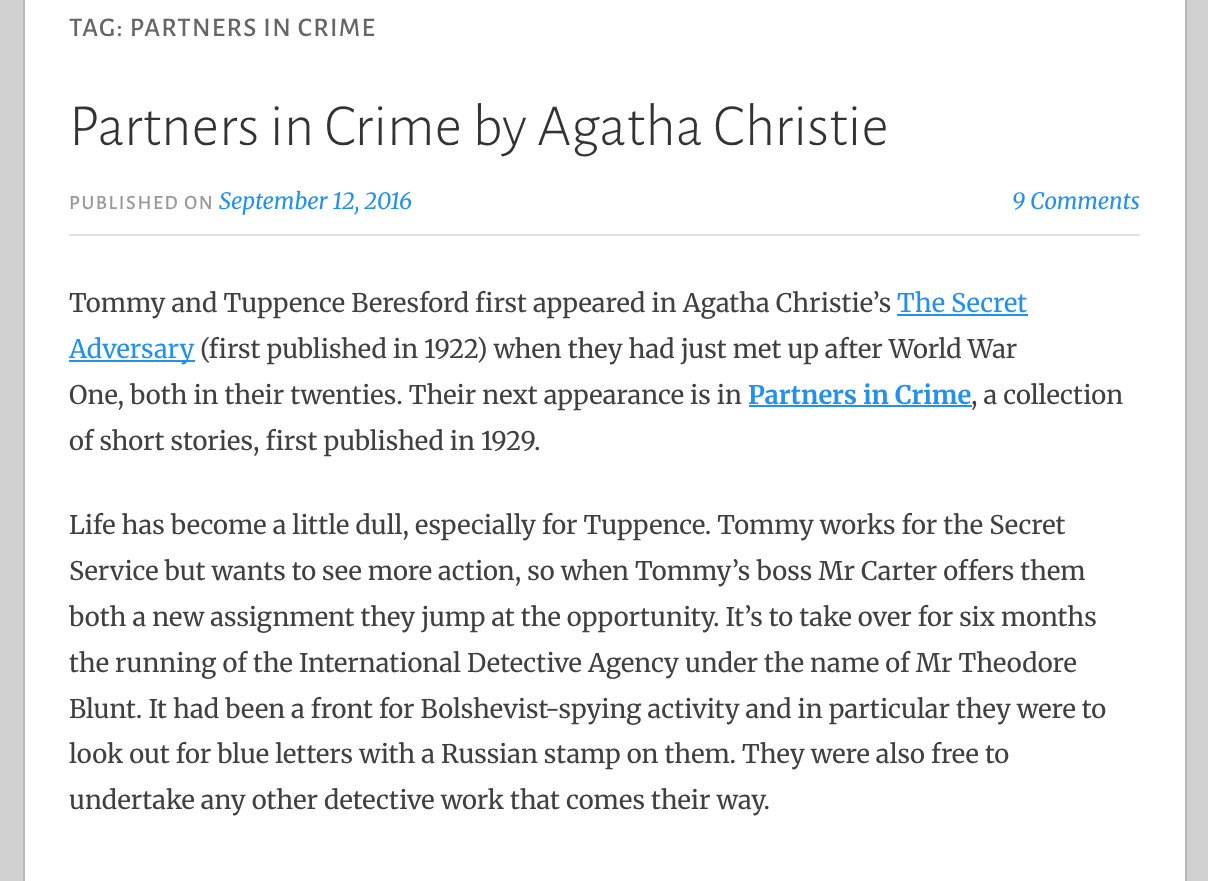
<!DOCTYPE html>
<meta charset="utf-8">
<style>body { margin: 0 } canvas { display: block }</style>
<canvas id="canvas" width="1208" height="881"></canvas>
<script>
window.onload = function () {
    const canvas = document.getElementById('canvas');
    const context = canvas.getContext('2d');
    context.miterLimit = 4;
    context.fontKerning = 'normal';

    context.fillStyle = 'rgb(209, 209, 209)';
    context.fillRect(0, 0, 1208, 881);
    context.fillStyle = 'rgb(255, 255, 255)';
    context.beginPath();
    context.rect(24, -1, 1162, 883);
    context.fill();
    context.strokeStyle = 'rgb(183, 183, 183)';
    context.lineWidth = 2;
    context.stroke();
    context.fillStyle = 'rgb(225, 225, 225)';
    context.fillRect(69, 234, 1071, 2);
    context.fillStyle = 'rgb(37, 144, 236)';
    context.fillRect(897, 314, 131, 2);
    context.fillRect(69, 360, 126, 2);
    context.fillRect(749, 405, 223, 2);
    context.letterSpacing = '1.35px';
    context.font = '500 27px Alegreya Sans';
    context.fillStyle = 'rgb(102, 102, 102)';
    context.fillText('TAG: PARTNERS IN CRIME', 69, 36);
    context.letterSpacing = '0px';
    context.font = '300 60px Alegreya Sans';
    context.fillStyle = 'rgb(51, 51, 51)';
    context.fillText('Partners in Crime by Agatha Christie', 69, 145);
    context.letterSpacing = '1.6px';
    context.font = '500 20.25px Alegreya Sans';
    context.fillStyle = 'rgb(153, 153, 153)';
    context.fillText('PUBLISHED ON', 69, 209);
    context.letterSpacing = '0px';
    context.font = 'italic 22.5px Merriweather';
    context.fillStyle = 'rgb(37, 144, 236)';
    context.fillText('September 12, 2016', 219, 209);
    context.fillText('9 Comments', 1012, 209);
    context.font = '25.5px Merriweather';
    context.fillStyle = 'rgb(64, 64, 64)';
    context.fillText('Tommy and Tuppence Beresford first appeared in Agatha Christie’s', 69, 312);
    context.fillStyle = 'rgb(37, 144, 236)';
    context.fillText('The Secret', 897, 312);
    context.fillText('Adversary', 69, 358);
    context.fillStyle = 'rgb(64, 64, 64)';
    context.fillText('(first published in 1922) when they had just met up after World War', 200, 358);
    context.fillText('One, both in their twenties. Their next appearance is in', 69, 404);
    context.font = 'bold 25.5px Merriweather';
    context.fillStyle = 'rgb(37, 144, 236)';
    context.fillText('Partners in Crime', 748, 404);
    context.font = '25.5px Merriweather';
    context.fillStyle = 'rgb(64, 64, 64)';
    context.fillText(', a collection', 971, 404);
    context.fillText('of short stories, first published in 1929.', 69, 450);
    context.fillText('Life has become a little dull, especially for Tuppence. Tommy works for the Secret', 69, 534);
    context.fillText('Service but wants to see more action, so when Tommy’s boss Mr Carter offers them', 69, 580);
    context.fillText('both a new assignment they jump at the opportunity. It’s to take over for six months', 69, 626);
    context.fillText('the running of the International Detective Agency under the name of Mr Theodore', 69, 672);
    context.fillText('Blunt. It had been a front for Bolshevist-spying activity and in particular they were to', 69, 718);
    context.fillText('look out for blue letters with a Russian stamp on them. They were also free to', 69, 763);
    context.fillText('undertake any other detective work that comes their way.', 69, 809);
};
</script>
